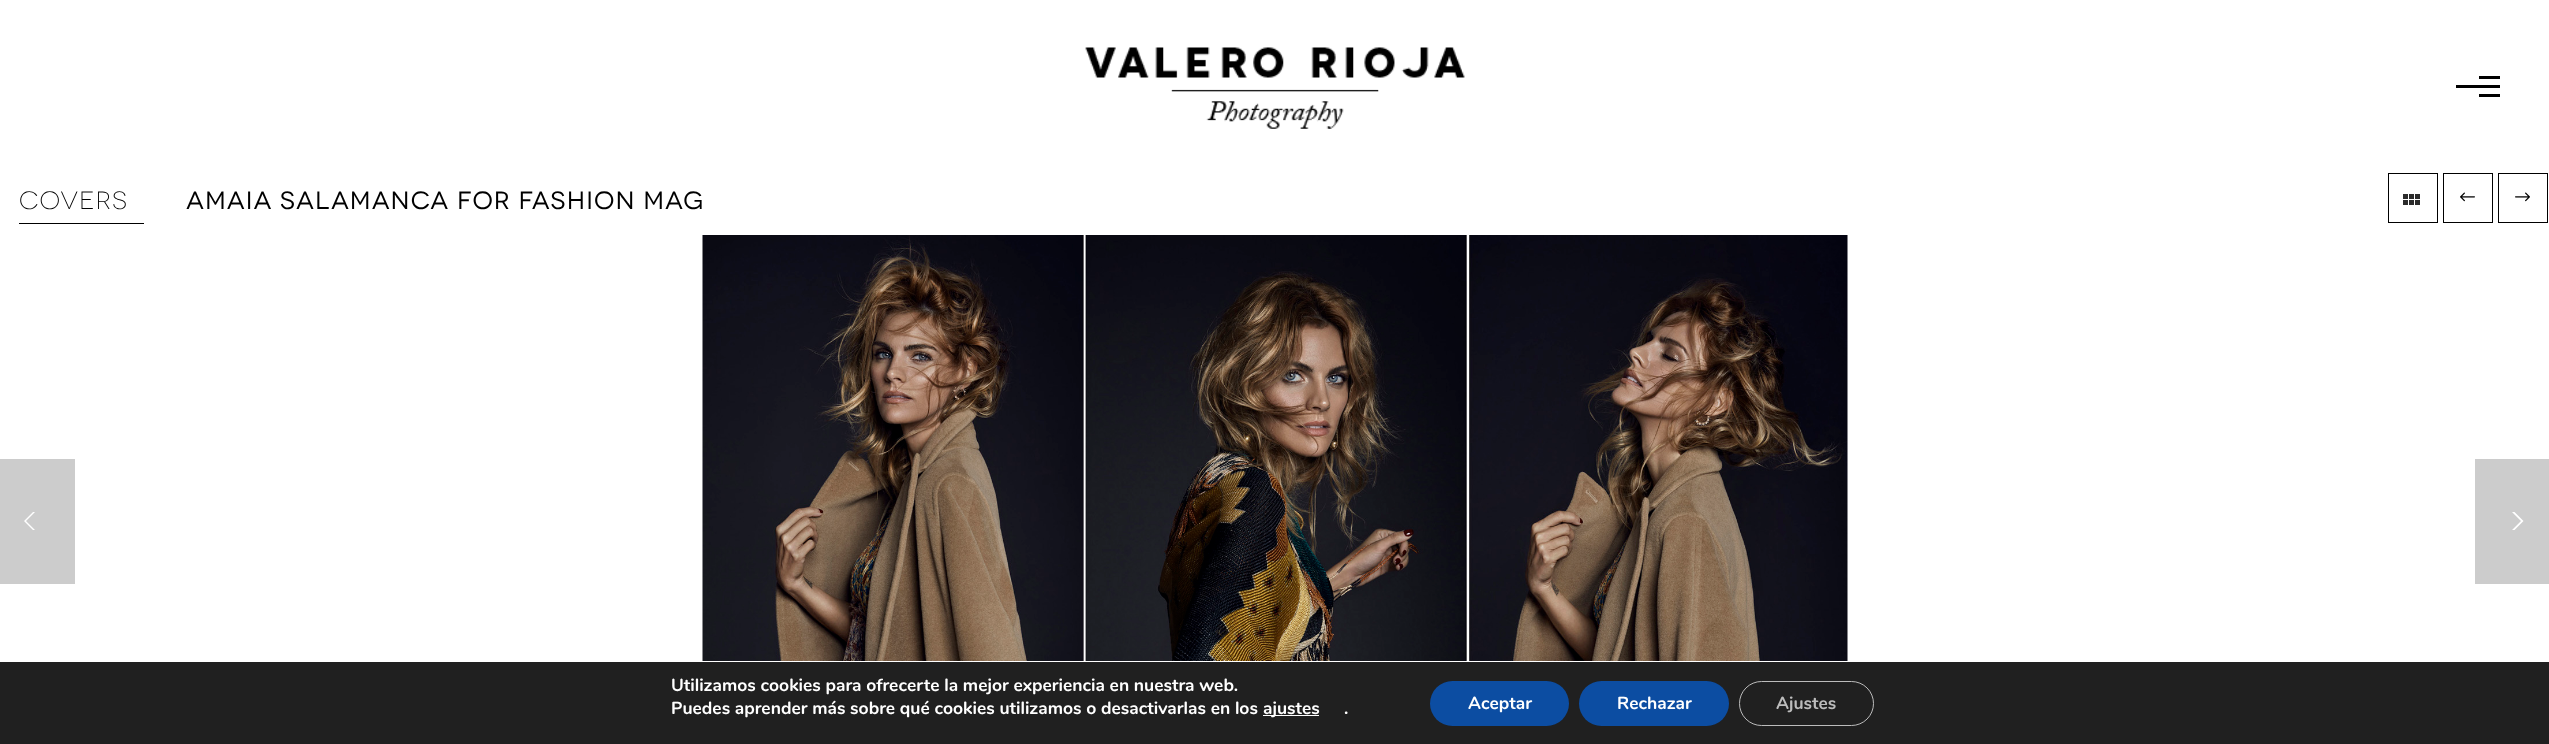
<!DOCTYPE html>
<meta charset="utf-8">
<style>body { margin: 0 } canvas { display: block }</style>
<canvas id="canvas" width="2549" height="744"></canvas>
<img id="img1" src="images/1.png" hidden>
<img id="img2" src="images/2.png" hidden>
<img id="img3" src="images/3.png" hidden>
<img id="img4" src="images/4.png" hidden>
<script>
window.onload = function () {
    const canvas = document.getElementById('canvas');
    const context = canvas.getContext('2d');
    context.miterLimit = 4;
    context.fontKerning = 'normal';

    context.fillStyle = 'rgb(255, 255, 255)';
    context.fillRect(0, 0, 2549, 744);
    context.drawImage(document.getElementById('img1'), 1085, 47, 380, 82);
    context.fillStyle = 'rgb(0, 0, 0)';
    context.fillRect(2479, 76, 21, 3);
    context.fillRect(2456, 85, 44, 3);
    context.fillRect(2479, 94, 21, 3);
    context.fillRect(19, 223, 125, 1);
    context.strokeStyle = 'rgb(0, 0, 0)';
    context.strokeRect(2388.5, 173.5, 49, 49);
    context.fillStyle = 'rgb(43, 43, 43)';
    context.fillRect(2403, 194, 5, 5);
    context.fillRect(2409, 194, 5, 5);
    context.fillRect(2415, 194, 5, 5);
    context.fillRect(2403, 200, 5, 5);
    context.fillRect(2409, 200, 5, 5);
    context.fillRect(2415, 200, 5, 5);
    context.strokeRect(2443.5, 173.5, 49, 49);
    context.drawImage(document.getElementById('img2'), 2460, 192, 15, 10);
    context.strokeRect(2498.5, 173.5, 49, 49);
    context.drawImage(document.getElementById('img3'), 2515, 192, 15, 10);
    context.fillStyle = 'rgb(204, 204, 204)';
    context.fillRect(0, 459, 75, 125);
    context.fillStyle = 'rgb(255, 255, 255)';
    context.beginPath();
    context.moveTo(24, 521);
    context.lineTo(33, 530);
    context.lineTo(35, 530);
    context.lineTo(26, 521);
    context.lineTo(35, 512);
    context.lineTo(33, 512);
    context.closePath();
    context.fill();
    context.drawImage(document.getElementById('img4'), 702, 235, 1146, 426);
    context.fillStyle = 'rgb(204, 204, 204)';
    context.fillRect(2475, 459, 74, 125);
    context.fillStyle = 'rgb(255, 255, 255)';
    context.beginPath();
    context.moveTo(2523.5, 521);
    context.lineTo(2514.5, 512);
    context.lineTo(2512, 512);
    context.lineTo(2521, 521);
    context.lineTo(2512, 530);
    context.lineTo(2514.5, 530);
    context.closePath();
    context.fill();
    context.fillStyle = 'rgb(32, 32, 32)';
    context.fillRect(0, 662, 2549, 82);
    context.fillStyle = 'rgb(255, 255, 255)';
    context.fillRect(1263, 715, 56, 1);
    context.fillStyle = 'rgb(12, 77, 162)';
    context.beginPath();
    context.roundRect(1430, 681, 139, 45, 22.5);
    context.fill();
    context.beginPath();
    context.roundRect(1579, 681, 150, 45, 22.5);
    context.fill();
    context.beginPath();
    context.roundRect(1739.5, 681.5, 134, 44, 22);
    context.strokeStyle = 'rgb(188, 188, 188)';
    context.stroke();
    context.letterSpacing = '1.25px';
    context.font = '300 25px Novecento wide';
    context.fillStyle = 'rgb(0, 0, 0)';
    context.fillText('COVERS', 19, 209);
    context.font = '25px Novecento wide';
    context.fillText('AMAIA SALAMANCA FOR FASHION MAG', 186, 209);
    context.letterSpacing = '0px';
    context.font = 'bold 17.5px Nunito';
    context.fillStyle = 'rgb(255, 255, 255)';
    context.fillText('Utilizamos cookies para ofrecerte la mejor experiencia en nuestra web.', 671, 691);
    context.fillText('Puedes aprender más sobre qué cookies utilizamos o desactivarlas en los', 671, 714);
    context.fillText('ajustes', 1263, 714);
    context.fillText('.', 1344, 714);
    context.fillText('Aceptar', 1468, 709);
    context.fillText('Rechazar', 1617, 709);
    context.fillStyle = 'rgb(188, 188, 188)';
    context.fillText('Ajustes', 1776, 709);
};
</script>
